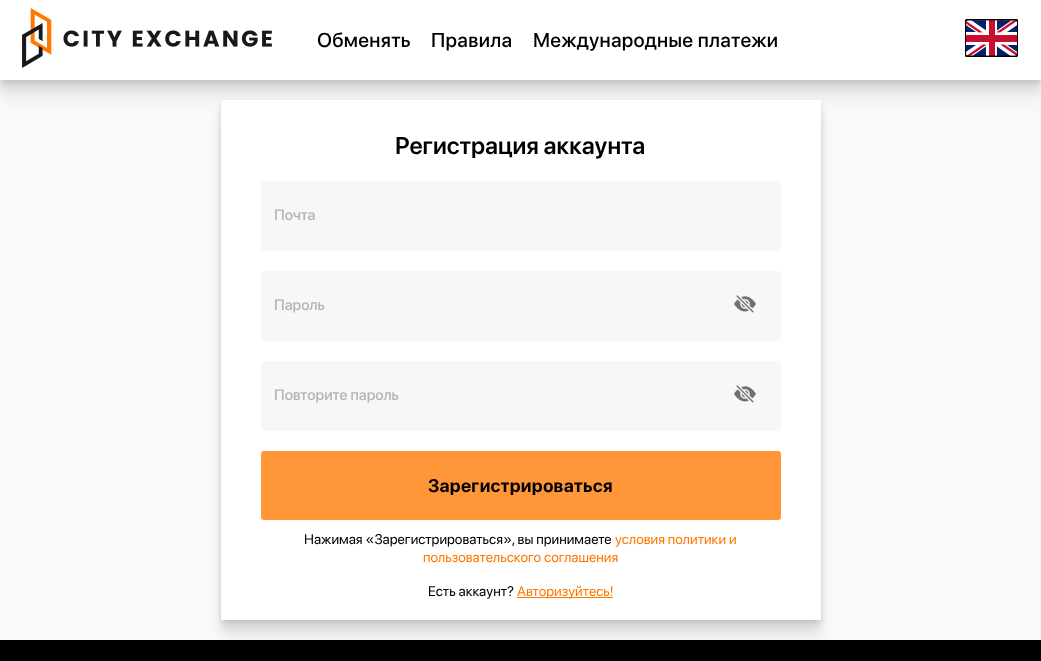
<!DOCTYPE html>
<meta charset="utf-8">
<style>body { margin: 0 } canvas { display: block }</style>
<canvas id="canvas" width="1041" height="661"></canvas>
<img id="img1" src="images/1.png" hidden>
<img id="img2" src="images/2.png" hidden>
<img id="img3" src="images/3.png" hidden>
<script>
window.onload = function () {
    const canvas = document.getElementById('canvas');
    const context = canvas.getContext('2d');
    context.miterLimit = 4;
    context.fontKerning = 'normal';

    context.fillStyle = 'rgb(249, 249, 249)';
    context.fillRect(0, 0, 1041, 661);
    context.fillStyle = 'rgba(0, 0, 0, 0.05)';
    context.filter = 'blur(6px)';
    context.beginPath();
    context.rect(0, 20, 1041, 80);
    context.fill();
    context.filter = 'none';
    context.fillStyle = 'rgba(0, 0, 0, 0.09)';
    context.filter = 'blur(4.5px)';
    context.beginPath();
    context.rect(0, 9, 1041, 80);
    context.fill();
    context.filter = 'none';
    context.fillStyle = 'rgba(0, 0, 0, 0.1)';
    context.filter = 'blur(2.5px)';
    context.beginPath();
    context.rect(0, 2, 1041, 80);
    context.fill();
    context.filter = 'none';
    context.fillStyle = 'rgb(255, 255, 255)';
    context.fillRect(0, 0, 1041, 80);
    context.drawImage(document.getElementById('img1'), 22, 8, 250, 60);
    context.drawImage(document.getElementById('img2'), 965, 19, 53, 38);
    context.fillStyle = 'rgba(0, 0, 0, 0.05)';
    context.filter = 'blur(6px)';
    context.beginPath();
    context.rect(221, 120, 600, 520);
    context.fill();
    context.filter = 'none';
    context.fillStyle = 'rgba(0, 0, 0, 0.09)';
    context.filter = 'blur(4.5px)';
    context.beginPath();
    context.rect(221, 109, 600, 520);
    context.fill();
    context.filter = 'none';
    context.fillStyle = 'rgba(0, 0, 0, 0.1)';
    context.filter = 'blur(2.5px)';
    context.beginPath();
    context.rect(221, 102, 600, 520);
    context.fill();
    context.filter = 'none';
    context.fillStyle = 'rgb(255, 255, 255)';
    context.fillRect(221, 100, 600, 520);
    context.fillStyle = 'rgb(246, 247, 248)';
    context.beginPath();
    context.roundRect(261, 181, 520, 70, 4);
    context.fill();
    context.beginPath();
    context.roundRect(261, 271, 520, 70, 4);
    context.fill();
    context.drawImage(document.getElementById('img3'), 734, 295, 22, 18);
    context.beginPath();
    context.roundRect(261, 361, 520, 70, 4);
    context.fill();
    context.drawImage(document.getElementById('img3'), 734, 385, 22, 18);
    context.fillStyle = 'rgb(255, 151, 56)';
    context.beginPath();
    context.roundRect(261, 451, 520, 69, 3);
    context.fill();
    context.fillStyle = 'rgb(255, 120, 0)';
    context.fillRect(517, 597, 96, 1);
    context.fillStyle = 'rgb(0, 0, 0)';
    context.fillRect(0, 640, 1041, 21);
    context.letterSpacing = '0.3px';
    context.font = '500 20px SF Pro Display';
    context.fillText('Обменять', 317, 47);
    context.fillText('Правила', 431, 47);
    context.fillText('Международные платежи', 533, 47);
    context.letterSpacing = '0px';
    context.font = '600 24px SF Pro Display';
    context.fillText('Регистрация аккаунта', 395, 154);
    context.font = '500 15px SF Pro Display';
    context.fillStyle = 'rgb(180, 180, 181)';
    context.fillText('Почта', 274, 220);
    context.fillText('Пароль', 274, 310);
    context.fillText('Повторите пароль', 274, 400);
    context.letterSpacing = '0.25px';
    context.font = 'bold 18px SF Pro Display';
    context.fillStyle = 'rgb(0, 0, 0)';
    context.fillText('Зарегистрироваться', 428, 492);
    context.letterSpacing = '0px';
    context.font = '14px SF Pro Display';
    context.fillText('Нажимая «Зарегистрироваться», вы принимаете', 304, 544);
    context.fillStyle = 'rgb(255, 120, 0)';
    context.fillText('условия политики и', 615, 544);
    context.fillText('пользовательского соглашения', 423, 562);
    context.fillStyle = 'rgb(0, 0, 0)';
    context.fillText('Есть аккаунт?', 428, 596);
    context.fillStyle = 'rgb(255, 120, 0)';
    context.fillText('Авторизуйтесь!', 517, 596);
};
</script>
